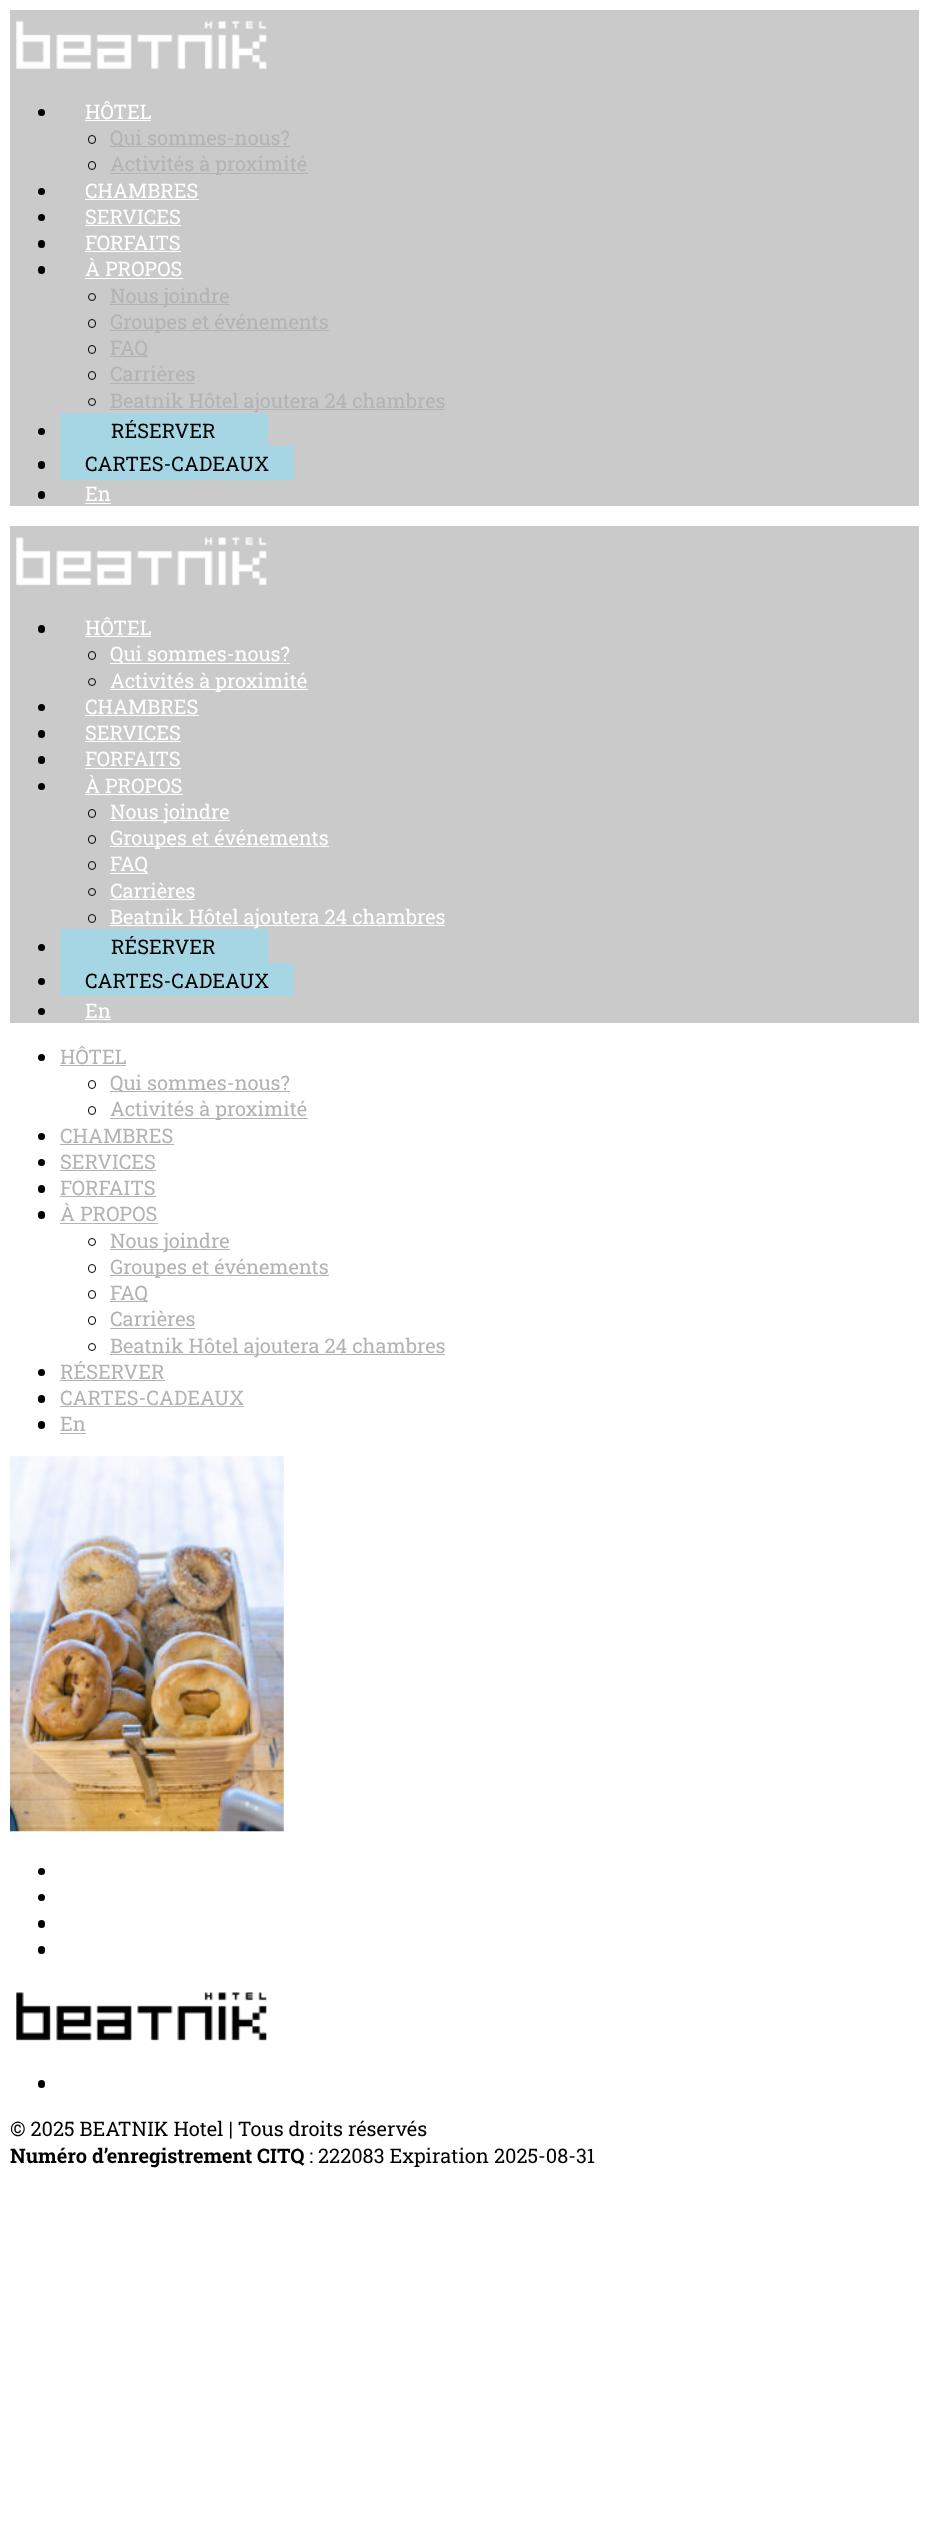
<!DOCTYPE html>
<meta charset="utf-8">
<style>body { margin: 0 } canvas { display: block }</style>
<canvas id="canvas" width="928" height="2536"></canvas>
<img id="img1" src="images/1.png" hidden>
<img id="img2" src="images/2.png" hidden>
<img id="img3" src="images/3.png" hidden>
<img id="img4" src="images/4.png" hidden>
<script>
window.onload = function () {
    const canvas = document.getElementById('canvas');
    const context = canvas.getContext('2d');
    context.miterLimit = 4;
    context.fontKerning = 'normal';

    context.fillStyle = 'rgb(255, 255, 255)';
    context.fillRect(0, 0, 928, 2536);
    context.fillStyle = 'rgb(202, 202, 202)';
    context.fillRect(10, 10, 909, 496);
    context.drawImage(document.getElementById('img1'), 16, 21, 251, 48);
    context.fillStyle = 'rgb(0, 0, 0)';
    context.beginPath();
    context.arc(41.5, 112.5, 3.5, 0, 2 * Math.PI);
    context.fill();
    context.fillStyle = 'rgb(255, 255, 255)';
    context.fillRect(85, 120, 66, 1);
    context.beginPath();
    context.roundRect(88.5, 135.5, 7, 8, 3.5);
    context.strokeStyle = 'rgb(0, 0, 0)';
    context.stroke();
    context.fillStyle = 'rgb(179, 179, 179)';
    context.fillRect(110, 146, 180, 1);
    context.beginPath();
    context.roundRect(88.5, 161.5, 7, 8, 3.5);
    context.stroke();
    context.fillRect(110, 173, 198, 1);
    context.fillStyle = 'rgb(0, 0, 0)';
    context.beginPath();
    context.arc(41.5, 191.5, 3.5, 0, 2 * Math.PI);
    context.fill();
    context.fillStyle = 'rgb(255, 255, 255)';
    context.fillRect(85, 199, 114, 1);
    context.fillStyle = 'rgb(0, 0, 0)';
    context.beginPath();
    context.arc(41.5, 217.5, 3.5, 0, 2 * Math.PI);
    context.fill();
    context.fillStyle = 'rgb(255, 255, 255)';
    context.fillRect(85, 225, 96, 1);
    context.fillStyle = 'rgb(0, 0, 0)';
    context.beginPath();
    context.roundRect(38, 240, 7, 8, 3.5);
    context.fill();
    context.fillStyle = 'rgb(255, 255, 255)';
    context.fillRect(85, 251, 96, 1);
    context.fillStyle = 'rgb(0, 0, 0)';
    context.beginPath();
    context.roundRect(38, 266, 7, 8, 3.5);
    context.fill();
    context.fillStyle = 'rgb(255, 255, 255)';
    context.fillRect(85, 278, 98, 1);
    context.beginPath();
    context.arc(92, 297, 3.5, 0, 2 * Math.PI);
    context.stroke();
    context.fillStyle = 'rgb(179, 179, 179)';
    context.fillRect(110, 304, 120, 1);
    context.beginPath();
    context.roundRect(88.5, 319.5, 7, 8, 3.5);
    context.stroke();
    context.fillRect(110, 330, 219, 1);
    context.beginPath();
    context.roundRect(88.5, 345.5, 7, 8, 3.5);
    context.stroke();
    context.fillRect(110, 356, 38, 1);
    context.beginPath();
    context.roundRect(88.5, 371.5, 7, 8, 3.5);
    context.stroke();
    context.fillRect(110, 383, 85, 1);
    context.beginPath();
    context.arc(92, 402, 3.5, 0, 2 * Math.PI);
    context.stroke();
    context.fillRect(110, 409, 335, 1);
    context.fillStyle = 'rgb(0, 0, 0)';
    context.beginPath();
    context.arc(41.5, 431.5, 3.5, 0, 2 * Math.PI);
    context.fill();
    context.fillStyle = 'rgb(166, 214, 227)';
    context.fillRect(60, 413, 208, 33);
    context.fillStyle = 'rgb(0, 0, 0)';
    context.beginPath();
    context.roundRect(38, 461, 7, 8, 3.5);
    context.fill();
    context.fillStyle = 'rgb(166, 214, 227)';
    context.fillRect(60, 446, 234, 34);
    context.fillStyle = 'rgb(0, 0, 0)';
    context.beginPath();
    context.roundRect(38, 491, 7, 8, 3.5);
    context.fill();
    context.fillStyle = 'rgb(255, 255, 255)';
    context.fillRect(85, 503, 26, 1);
    context.fillStyle = 'rgb(202, 202, 202)';
    context.fillRect(10, 526, 909, 497);
    context.drawImage(document.getElementById('img2'), 16, 537, 251, 49);
    context.fillStyle = 'rgb(0, 0, 0)';
    context.beginPath();
    context.roundRect(38, 625, 7, 8, 3.5);
    context.fill();
    context.fillStyle = 'rgb(255, 255, 255)';
    context.fillRect(85, 636, 66, 1);
    context.beginPath();
    context.roundRect(88.5, 651.5, 7, 8, 3.5);
    context.stroke();
    context.fillRect(110, 663, 180, 1);
    context.beginPath();
    context.arc(92, 682, 3.5, 0, 2 * Math.PI);
    context.stroke();
    context.fillRect(110, 689, 198, 1);
    context.fillStyle = 'rgb(0, 0, 0)';
    context.beginPath();
    context.arc(41.5, 707.5, 3.5, 0, 2 * Math.PI);
    context.fill();
    context.fillStyle = 'rgb(255, 255, 255)';
    context.fillRect(85, 715, 114, 1);
    context.fillStyle = 'rgb(0, 0, 0)';
    context.beginPath();
    context.roundRect(38, 730, 7, 8, 3.5);
    context.fill();
    context.fillStyle = 'rgb(255, 255, 255)';
    context.fillRect(85, 741, 96, 1);
    context.fillStyle = 'rgb(0, 0, 0)';
    context.beginPath();
    context.roundRect(38, 756, 7, 8, 3.5);
    context.fill();
    context.fillStyle = 'rgb(255, 255, 255)';
    context.fillRect(85, 768, 96, 1);
    context.fillStyle = 'rgb(0, 0, 0)';
    context.beginPath();
    context.arc(41.5, 786.5, 3.5, 0, 2 * Math.PI);
    context.fill();
    context.fillStyle = 'rgb(255, 255, 255)';
    context.fillRect(85, 794, 98, 1);
    context.beginPath();
    context.roundRect(88.5, 809.5, 7, 8, 3.5);
    context.stroke();
    context.fillRect(110, 820, 120, 1);
    context.beginPath();
    context.roundRect(88.5, 835.5, 7, 8, 3.5);
    context.stroke();
    context.fillRect(110, 846, 219, 1);
    context.beginPath();
    context.roundRect(88.5, 861.5, 7, 8, 3.5);
    context.stroke();
    context.fillRect(110, 873, 38, 1);
    context.beginPath();
    context.arc(92, 892, 3.5, 0, 2 * Math.PI);
    context.stroke();
    context.fillRect(110, 899, 85, 1);
    context.beginPath();
    context.roundRect(88.5, 914.5, 7, 8, 3.5);
    context.stroke();
    context.fillRect(110, 925, 335, 1);
    context.fillStyle = 'rgb(0, 0, 0)';
    context.beginPath();
    context.arc(41.5, 947.5, 3.5, 0, 2 * Math.PI);
    context.fill();
    context.fillStyle = 'rgb(166, 214, 227)';
    context.fillRect(60, 929, 208, 34);
    context.fillStyle = 'rgb(0, 0, 0)';
    context.beginPath();
    context.arc(41.5, 981.5, 3.5, 0, 2 * Math.PI);
    context.fill();
    context.fillStyle = 'rgb(166, 214, 227)';
    context.fillRect(60, 963, 234, 33);
    context.fillStyle = 'rgb(0, 0, 0)';
    context.beginPath();
    context.arc(41.5, 1011.5, 3.5, 0, 2 * Math.PI);
    context.fill();
    context.fillStyle = 'rgb(255, 255, 255)';
    context.fillRect(85, 1019, 26, 1);
    context.fillStyle = 'rgb(0, 0, 0)';
    context.beginPath();
    context.arc(41.5, 1057.5, 3.5, 0, 2 * Math.PI);
    context.fill();
    context.fillStyle = 'rgb(179, 179, 179)';
    context.fillRect(60, 1065, 66, 1);
    context.beginPath();
    context.roundRect(88.5, 1080.5, 7, 8, 3.5);
    context.stroke();
    context.fillRect(110, 1091, 180, 1);
    context.beginPath();
    context.roundRect(88.5, 1106.5, 7, 8, 3.5);
    context.stroke();
    context.fillRect(110, 1118, 198, 1);
    context.fillStyle = 'rgb(0, 0, 0)';
    context.beginPath();
    context.arc(41.5, 1136.5, 3.5, 0, 2 * Math.PI);
    context.fill();
    context.fillStyle = 'rgb(179, 179, 179)';
    context.fillRect(60, 1144, 114, 1);
    context.fillStyle = 'rgb(0, 0, 0)';
    context.beginPath();
    context.arc(41.5, 1162.5, 3.5, 0, 2 * Math.PI);
    context.fill();
    context.fillStyle = 'rgb(179, 179, 179)';
    context.fillRect(60, 1170, 96, 1);
    context.fillStyle = 'rgb(0, 0, 0)';
    context.beginPath();
    context.roundRect(38, 1185, 7, 8, 3.5);
    context.fill();
    context.fillStyle = 'rgb(179, 179, 179)';
    context.fillRect(60, 1196, 96, 1);
    context.fillStyle = 'rgb(0, 0, 0)';
    context.beginPath();
    context.roundRect(38, 1211, 7, 8, 3.5);
    context.fill();
    context.fillStyle = 'rgb(179, 179, 179)';
    context.fillRect(60, 1223, 98, 1);
    context.beginPath();
    context.arc(92, 1242, 3.5, 0, 2 * Math.PI);
    context.stroke();
    context.fillRect(110, 1249, 120, 1);
    context.beginPath();
    context.roundRect(88.5, 1264.5, 7, 8, 3.5);
    context.stroke();
    context.fillRect(110, 1275, 219, 1);
    context.beginPath();
    context.roundRect(88.5, 1290.5, 7, 8, 3.5);
    context.stroke();
    context.fillRect(110, 1301, 38, 1);
    context.beginPath();
    context.roundRect(88.5, 1316.5, 7, 8, 3.5);
    context.stroke();
    context.fillRect(110, 1328, 85, 1);
    context.beginPath();
    context.arc(92, 1347, 3.5, 0, 2 * Math.PI);
    context.stroke();
    context.fillRect(110, 1354, 335, 1);
    context.fillStyle = 'rgb(0, 0, 0)';
    context.beginPath();
    context.arc(41.5, 1372.5, 3.5, 0, 2 * Math.PI);
    context.fill();
    context.fillStyle = 'rgb(179, 179, 179)';
    context.fillRect(60, 1380, 105, 1);
    context.fillStyle = 'rgb(0, 0, 0)';
    context.beginPath();
    context.roundRect(38, 1395, 7, 8, 3.5);
    context.fill();
    context.fillStyle = 'rgb(179, 179, 179)';
    context.fillRect(60, 1406, 184, 1);
    context.fillStyle = 'rgb(0, 0, 0)';
    context.beginPath();
    context.roundRect(38, 1421, 7, 8, 3.5);
    context.fill();
    context.fillStyle = 'rgb(179, 179, 179)';
    context.fillRect(60, 1433, 26, 1);
    context.drawImage(document.getElementById('img3'), 10, 1456, 274, 376);
    context.fillStyle = 'rgb(0, 0, 0)';
    context.beginPath();
    context.arc(41.5, 1871.5, 3.5, 0, 2 * Math.PI);
    context.fill();
    context.beginPath();
    context.arc(41.5, 1897.5, 3.5, 0, 2 * Math.PI);
    context.fill();
    context.beginPath();
    context.roundRect(38, 1920, 7, 8, 3.5);
    context.fill();
    context.beginPath();
    context.roundRect(38, 1946, 7, 8, 3.5);
    context.fill();
    context.drawImage(document.getElementById('img4'), 16, 1992, 251, 49);
    context.beginPath();
    context.roundRect(38, 2080, 7, 8, 3.5);
    context.fill();
    context.font = '20px Roboto Slab';
    context.fillStyle = 'rgb(255, 255, 255)';
    context.fillText('HÔTEL', 85, 119);
    context.fillStyle = 'rgb(179, 179, 179)';
    context.fillText('Qui sommes-nous?', 110, 145);
    context.fillText('Activités à proximité', 110, 171);
    context.fillStyle = 'rgb(255, 255, 255)';
    context.fillText('CHAMBRES', 85, 198);
    context.fillText('SERVICES', 85, 224);
    context.fillText('FORFAITS', 85, 250);
    context.fillText('À PROPOS', 85, 276);
    context.fillStyle = 'rgb(179, 179, 179)';
    context.fillText('Nous joindre', 110, 303);
    context.fillText('Groupes et événements', 110, 329);
    context.fillText('FAQ', 110, 355);
    context.fillText('Carrières', 110, 381);
    context.fillText('Beatnik Hôtel ajoutera 24 chambres', 110, 408);
    context.fillStyle = 'rgb(0, 0, 0)';
    context.fillText('RÉSERVER', 111, 438);
    context.fillText('CARTES-CADEAUX', 85, 471);
    context.fillStyle = 'rgb(255, 255, 255)';
    context.fillText('En', 85, 501);
    context.fillText('HÔTEL', 85, 635);
    context.fillText('Qui sommes-nous?', 110, 661);
    context.fillText('Activités à proximité', 110, 688);
    context.fillText('CHAMBRES', 85, 714);
    context.fillText('SERVICES', 85, 740);
    context.fillText('FORFAITS', 85, 766);
    context.fillText('À PROPOS', 85, 793);
    context.fillText('Nous joindre', 110, 819);
    context.fillText('Groupes et événements', 110, 845);
    context.fillText('FAQ', 110, 871);
    context.fillText('Carrières', 110, 898);
    context.fillText('Beatnik Hôtel ajoutera 24 chambres', 110, 924);
    context.fillStyle = 'rgb(0, 0, 0)';
    context.fillText('RÉSERVER', 111, 954);
    context.fillText('CARTES-CADEAUX', 85, 988);
    context.fillStyle = 'rgb(255, 255, 255)';
    context.fillText('En', 85, 1018);
    context.fillStyle = 'rgb(179, 179, 179)';
    context.fillText('HÔTEL', 60, 1064);
    context.fillText('Qui sommes-nous?', 110, 1090);
    context.fillText('Activités à proximité', 110, 1116);
    context.fillText('CHAMBRES', 60, 1143);
    context.fillText('SERVICES', 60, 1169);
    context.fillText('FORFAITS', 60, 1195);
    context.fillText('À PROPOS', 60, 1221);
    context.fillText('Nous joindre', 110, 1248);
    context.fillText('Groupes et événements', 110, 1274);
    context.fillText('FAQ', 110, 1300);
    context.fillText('Carrières', 110, 1326);
    context.fillText('Beatnik Hôtel ajoutera 24 chambres', 110, 1353);
    context.fillText('RÉSERVER', 60, 1379);
    context.fillText('CARTES-CADEAUX', 60, 1405);
    context.fillText('En', 60, 1431);
    context.fillStyle = 'rgb(0, 0, 0)';
    context.fillText('© 2025 BEATNIK Hotel | Tous droits réservés', 10, 2136);
    context.font = 'bold 20px Roboto Slab';
    context.fillText('Numéro d’enregistrement CITQ', 10, 2163);
    context.font = '20px Roboto Slab';
    context.fillText(': 222083 Expiration 2025-08-31', 309, 2163);
};
</script>
